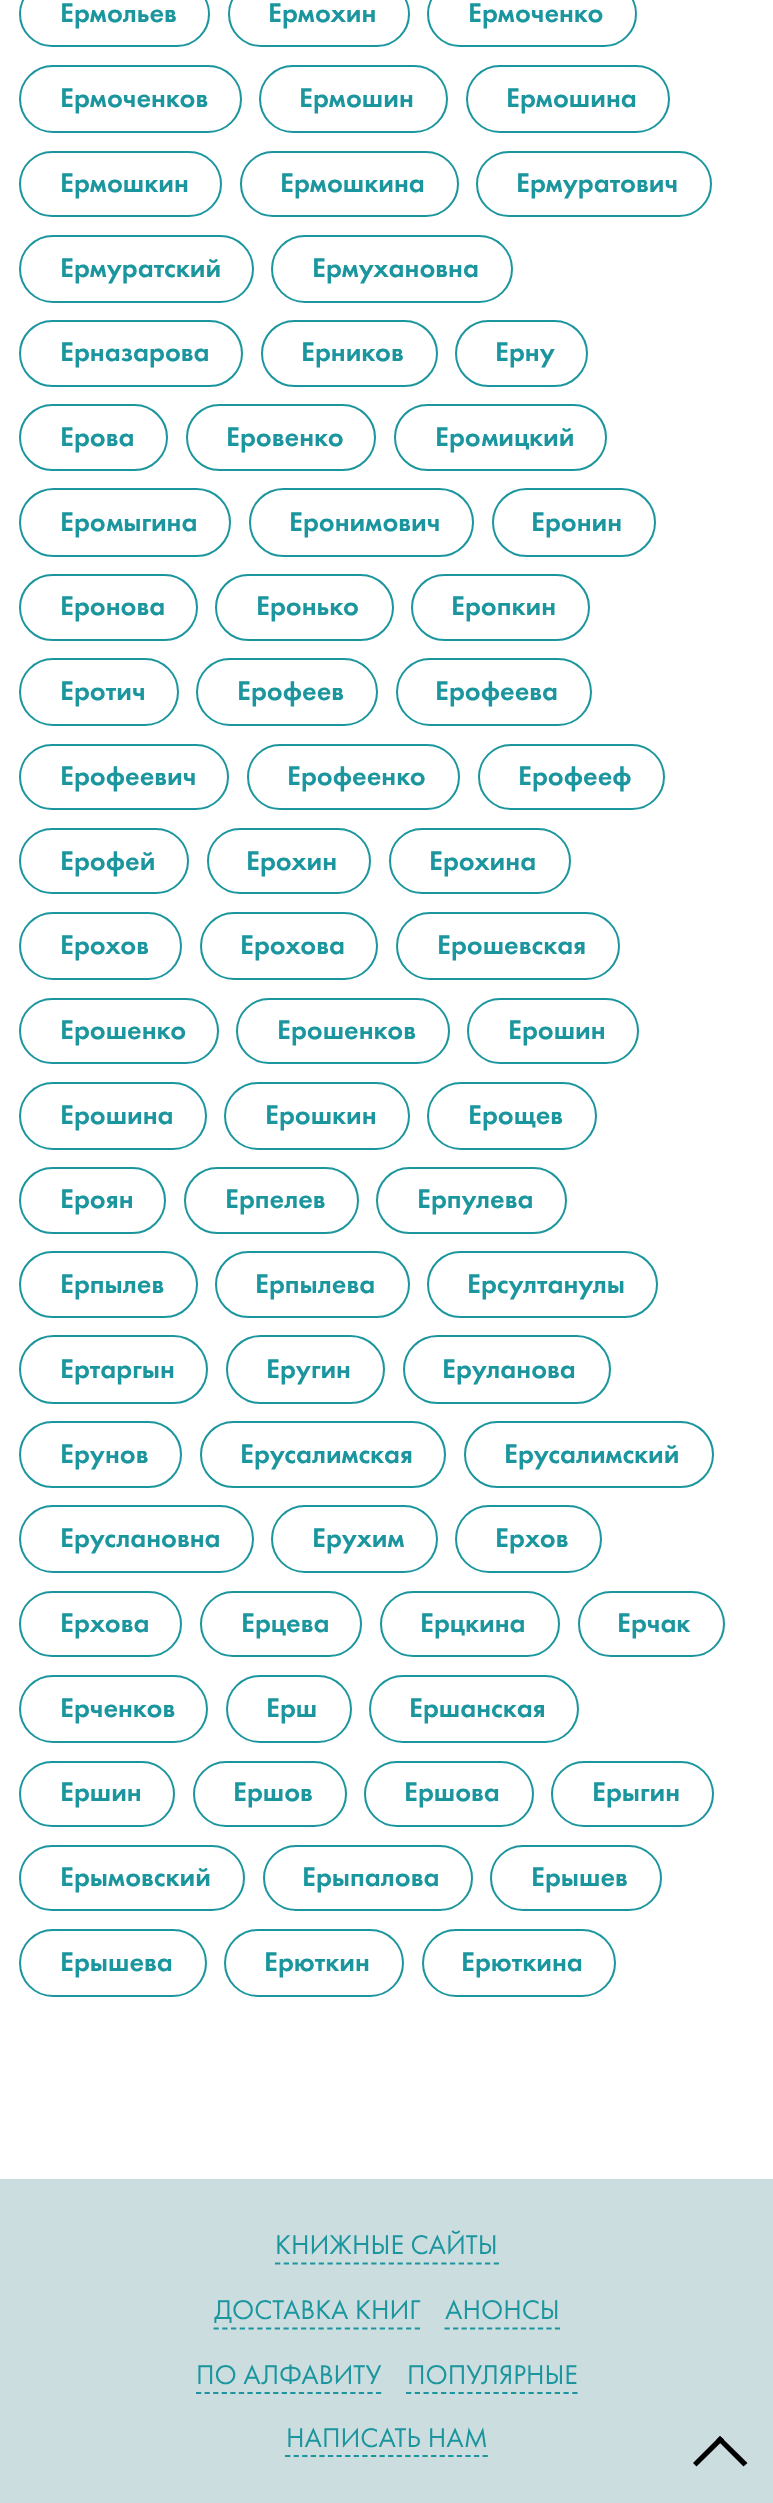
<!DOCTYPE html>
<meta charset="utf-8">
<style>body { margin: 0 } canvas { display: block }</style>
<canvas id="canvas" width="773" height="2503"></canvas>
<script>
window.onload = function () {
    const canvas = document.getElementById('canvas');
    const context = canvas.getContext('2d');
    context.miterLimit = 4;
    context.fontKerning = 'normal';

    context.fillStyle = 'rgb(255, 255, 255)';
    context.fillRect(0, 0, 773, 2503);
    context.beginPath();
    context.roundRect(20, -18, 189, 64, 32);
    context.strokeStyle = 'rgb(27, 150, 158)';
    context.lineWidth = 2;
    context.stroke();
    context.beginPath();
    context.roundRect(229, -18, 180, 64, 32);
    context.stroke();
    context.beginPath();
    context.roundRect(428, -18, 208, 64, 32);
    context.stroke();
    context.beginPath();
    context.roundRect(20, 66, 221, 66, 33);
    context.stroke();
    context.beginPath();
    context.roundRect(260, 66, 187, 66, 33);
    context.stroke();
    context.beginPath();
    context.roundRect(467, 66, 202, 66, 33);
    context.stroke();
    context.beginPath();
    context.roundRect(20, 152, 201, 64, 32);
    context.stroke();
    context.beginPath();
    context.roundRect(241, 152, 217, 64, 32);
    context.stroke();
    context.beginPath();
    context.roundRect(477, 152, 234, 64, 32);
    context.stroke();
    context.beginPath();
    context.roundRect(20, 236, 233, 66, 33);
    context.stroke();
    context.beginPath();
    context.roundRect(272, 236, 240, 66, 33);
    context.stroke();
    context.beginPath();
    context.roundRect(20, 321, 222, 65, 32.5);
    context.stroke();
    context.beginPath();
    context.roundRect(262, 321, 175, 65, 32.5);
    context.stroke();
    context.beginPath();
    context.roundRect(456, 321, 131, 65, 32.5);
    context.stroke();
    context.beginPath();
    context.roundRect(20, 405, 147, 65, 32.5);
    context.stroke();
    context.beginPath();
    context.roundRect(187, 405, 188, 65, 32.5);
    context.stroke();
    context.beginPath();
    context.roundRect(395, 405, 211, 65, 32.5);
    context.stroke();
    context.beginPath();
    context.roundRect(20, 489, 210, 67, 33.5);
    context.stroke();
    context.beginPath();
    context.roundRect(250, 489, 223, 67, 33.5);
    context.stroke();
    context.beginPath();
    context.roundRect(493, 489, 162, 67, 33.5);
    context.stroke();
    context.beginPath();
    context.roundRect(20, 575, 177, 65, 32.5);
    context.stroke();
    context.beginPath();
    context.roundRect(216, 575, 177, 65, 32.5);
    context.stroke();
    context.beginPath();
    context.roundRect(412, 575, 177, 65, 32.5);
    context.stroke();
    context.beginPath();
    context.roundRect(20, 659, 158, 66, 33);
    context.stroke();
    context.beginPath();
    context.roundRect(197, 659, 180, 66, 33);
    context.stroke();
    context.beginPath();
    context.roundRect(397, 659, 194, 66, 33);
    context.stroke();
    context.beginPath();
    context.roundRect(20, 745, 208, 64, 32);
    context.stroke();
    context.beginPath();
    context.roundRect(248, 745, 211, 64, 32);
    context.stroke();
    context.beginPath();
    context.roundRect(479, 745, 185, 64, 32);
    context.stroke();
    context.beginPath();
    context.roundRect(20, 829, 168, 64, 32);
    context.stroke();
    context.beginPath();
    context.roundRect(208, 829, 162, 64, 32);
    context.stroke();
    context.beginPath();
    context.roundRect(390, 829, 180, 64, 32);
    context.stroke();
    context.beginPath();
    context.roundRect(20, 913, 161, 66, 33);
    context.stroke();
    context.beginPath();
    context.roundRect(201, 913, 176, 66, 33);
    context.stroke();
    context.beginPath();
    context.roundRect(397, 913, 222, 66, 33);
    context.stroke();
    context.beginPath();
    context.roundRect(20, 999, 198, 64, 32);
    context.stroke();
    context.beginPath();
    context.roundRect(237, 999, 212, 64, 32);
    context.stroke();
    context.beginPath();
    context.roundRect(468, 999, 170, 64, 32);
    context.stroke();
    context.beginPath();
    context.roundRect(20, 1083, 186, 66, 33);
    context.stroke();
    context.beginPath();
    context.roundRect(225, 1083, 184, 66, 33);
    context.stroke();
    context.beginPath();
    context.roundRect(428, 1083, 168, 66, 33);
    context.stroke();
    context.beginPath();
    context.roundRect(20, 1168, 145, 65, 32.5);
    context.stroke();
    context.beginPath();
    context.roundRect(185, 1168, 173, 65, 32.5);
    context.stroke();
    context.beginPath();
    context.roundRect(377, 1168, 189, 65, 32.5);
    context.stroke();
    context.beginPath();
    context.roundRect(20, 1252, 177, 65, 32.5);
    context.stroke();
    context.beginPath();
    context.roundRect(216, 1252, 193, 65, 32.5);
    context.stroke();
    context.beginPath();
    context.roundRect(428, 1252, 229, 65, 32.5);
    context.stroke();
    context.beginPath();
    context.roundRect(20, 1336, 187, 67, 33.5);
    context.stroke();
    context.beginPath();
    context.roundRect(227, 1336, 157, 67, 33.5);
    context.stroke();
    context.beginPath();
    context.roundRect(404, 1336, 206, 67, 33.5);
    context.stroke();
    context.beginPath();
    context.roundRect(20, 1422, 161, 65, 32.5);
    context.stroke();
    context.beginPath();
    context.roundRect(201, 1422, 244, 65, 32.5);
    context.stroke();
    context.beginPath();
    context.roundRect(465, 1422, 248, 65, 32.5);
    context.stroke();
    context.beginPath();
    context.roundRect(20, 1506, 233, 66, 33);
    context.stroke();
    context.beginPath();
    context.roundRect(272, 1506, 165, 66, 33);
    context.stroke();
    context.beginPath();
    context.roundRect(456, 1506, 145, 66, 33);
    context.stroke();
    context.beginPath();
    context.roundRect(20, 1592, 161, 64, 32);
    context.stroke();
    context.beginPath();
    context.roundRect(201, 1592, 160, 64, 32);
    context.stroke();
    context.beginPath();
    context.roundRect(381, 1592, 178, 64, 32);
    context.stroke();
    context.beginPath();
    context.roundRect(579, 1592, 145, 64, 32);
    context.stroke();
    context.beginPath();
    context.roundRect(20, 1676, 187, 66, 33);
    context.stroke();
    context.beginPath();
    context.roundRect(227, 1676, 124, 66, 33);
    context.stroke();
    context.beginPath();
    context.roundRect(370, 1676, 208, 66, 33);
    context.stroke();
    context.beginPath();
    context.roundRect(20, 1762, 154, 64, 32);
    context.stroke();
    context.beginPath();
    context.roundRect(194, 1762, 152, 64, 32);
    context.stroke();
    context.beginPath();
    context.roundRect(365, 1762, 168, 64, 32);
    context.stroke();
    context.beginPath();
    context.roundRect(552, 1762, 161, 64, 32);
    context.stroke();
    context.beginPath();
    context.roundRect(20, 1846, 224, 64, 32);
    context.stroke();
    context.beginPath();
    context.roundRect(264, 1846, 208, 64, 32);
    context.stroke();
    context.beginPath();
    context.roundRect(491, 1846, 170, 64, 32);
    context.stroke();
    context.beginPath();
    context.roundRect(20, 1930, 186, 66, 33);
    context.stroke();
    context.beginPath();
    context.roundRect(225, 1930, 178, 66, 33);
    context.stroke();
    context.beginPath();
    context.roundRect(423, 1930, 192, 66, 33);
    context.stroke();
    context.fillStyle = 'rgb(204, 221, 223)';
    context.fillRect(0, 2179, 773, 324);
    context.beginPath();
    context.moveTo(275, 2263.5);
    context.lineTo(499, 2263.5);
    context.lineWidth = 1.8;
    context.setLineDash([5.25, 3.5]);
    context.stroke();
    context.beginPath();
    context.moveTo(213.5, 2328.5);
    context.lineTo(420, 2328.5);
    context.stroke();
    context.beginPath();
    context.moveTo(444.5, 2328.5);
    context.lineTo(560, 2328.5);
    context.setLineDash([5.25, 3.24]);
    context.stroke();
    context.beginPath();
    context.moveTo(196, 2393);
    context.lineTo(381.5, 2393);
    context.setLineDash([5.25, 3.32]);
    context.stroke();
    context.beginPath();
    context.moveTo(406, 2393);
    context.lineTo(577.5, 2393);
    context.setLineDash([5.25, 3.5]);
    context.stroke();
    context.beginPath();
    context.moveTo(285, 2456);
    context.lineTo(488, 2456);
    context.setLineDash([5.25, 3.34]);
    context.stroke();
    context.fillStyle = 'rgb(0, 0, 0)';
    context.beginPath();
    context.moveTo(720, 2436);
    context.lineTo(747.5, 2463);
    context.lineTo(743.5, 2466.5);
    context.lineTo(716.5, 2439.5);
    context.closePath();
    context.fill();
    context.beginPath();
    context.moveTo(693, 2463);
    context.lineTo(720, 2436);
    context.lineTo(724, 2439.5);
    context.lineTo(696.5, 2466.5);
    context.closePath();
    context.fill();
    context.font = '500 28px Futura PT';
    context.fillStyle = 'rgb(27, 150, 158)';
    context.fillText('Ермольев', 60, 22);
    context.fillText('Ермохин', 268, 22);
    context.fillText('Ермоченко', 468, 22);
    context.fillText('Ермоченков', 60, 107);
    context.fillText('Ермошин', 299, 107);
    context.fillText('Ермошина', 506, 107);
    context.fillText('Ермошкин', 60, 192);
    context.fillText('Ермошкина', 280, 192);
    context.fillText('Ермуратович', 516, 192);
    context.fillText('Ермуратский', 60, 277);
    context.fillText('Ермухановна', 312, 277);
    context.fillText('Ерназарова', 60, 361);
    context.fillText('Ерников', 301, 361);
    context.fillText('Ерну', 495, 361);
    context.fillText('Ерова', 60, 446);
    context.fillText('Еровенко', 226, 446);
    context.fillText('Еромицкий', 435, 446);
    context.fillText('Еромыгина', 60, 531);
    context.fillText('Еронимович', 289, 531);
    context.fillText('Еронин', 531, 531);
    context.fillText('Еронова', 60, 615);
    context.fillText('Еронько', 256, 615);
    context.fillText('Еропкин', 451, 615);
    context.fillText('Еротич', 60, 700);
    context.fillText('Ерофеев', 237, 700);
    context.fillText('Ерофеева', 435, 700);
    context.fillText('Ерофеевич', 60, 785);
    context.fillText('Ерофеенко', 287, 785);
    context.fillText('Ерофееф', 518, 785);
    context.fillText('Ерофей', 60, 870);
    context.fillText('Ерохин', 246, 870);
    context.fillText('Ерохина', 429, 870);
    context.fillText('Ерохов', 60, 954);
    context.fillText('Ерохова', 240, 954);
    context.fillText('Ерошевская', 437, 954);
    context.fillText('Ерошенко', 60, 1039);
    context.fillText('Ерошенков', 277, 1039);
    context.fillText('Ерошин', 508, 1039);
    context.fillText('Ерошина', 60, 1124);
    context.fillText('Ерошкин', 265, 1124);
    context.fillText('Ерощев', 468, 1124);
    context.fillText('Ероян', 60, 1208);
    context.fillText('Ерпелев', 225, 1208);
    context.fillText('Ерпулева', 417, 1208);
    context.fillText('Ерпылев', 60, 1293);
    context.fillText('Ерпылева', 255, 1293);
    context.fillText('Ерсултанулы', 467, 1293);
    context.fillText('Ертаргын', 60, 1378);
    context.fillText('Еругин', 266, 1378);
    context.fillText('Еруланова', 442, 1378);
    context.fillText('Ерунов', 60, 1463);
    context.fillText('Ерусалимская', 240, 1463);
    context.fillText('Ерусалимский', 504, 1463);
    context.fillText('Еруслановна', 60, 1547);
    context.fillText('Ерухим', 312, 1547);
    context.fillText('Ерхов', 495, 1547);
    context.fillText('Ерхова', 60, 1632);
    context.fillText('Ерцева', 241, 1632);
    context.fillText('Ерцкина', 420, 1632);
    context.fillText('Ерчак', 617, 1632);
    context.fillText('Ерченков', 60, 1717);
    context.fillText('Ерш', 266, 1717);
    context.fillText('Ершанская', 409, 1717);
    context.fillText('Ершин', 60, 1801);
    context.fillText('Ершов', 233, 1801);
    context.fillText('Ершова', 404, 1801);
    context.fillText('Ерыгин', 592, 1801);
    context.fillText('Ерымовский', 60, 1886);
    context.fillText('Ерыпалова', 302, 1886);
    context.fillText('Ерышев', 531, 1886);
    context.fillText('Ерышева', 60, 1971);
    context.fillText('Ерюткин', 264, 1971);
    context.fillText('Ерюткина', 461, 1971);
    context.font = '28px Futura PT';
    context.fillText('КНИЖНЫЕ САЙТЫ', 275, 2254);
    context.fillText('ДОСТАВКА КНИГ', 214, 2319);
    context.fillText('АНОНСЫ', 445, 2319);
    context.fillText('ПО АЛФАВИТУ', 196, 2384);
    context.fillText('ПОПУЛЯРНЫЕ', 407, 2384);
    context.fillText('НАПИСАТЬ НАМ', 286, 2447);
};
</script>
